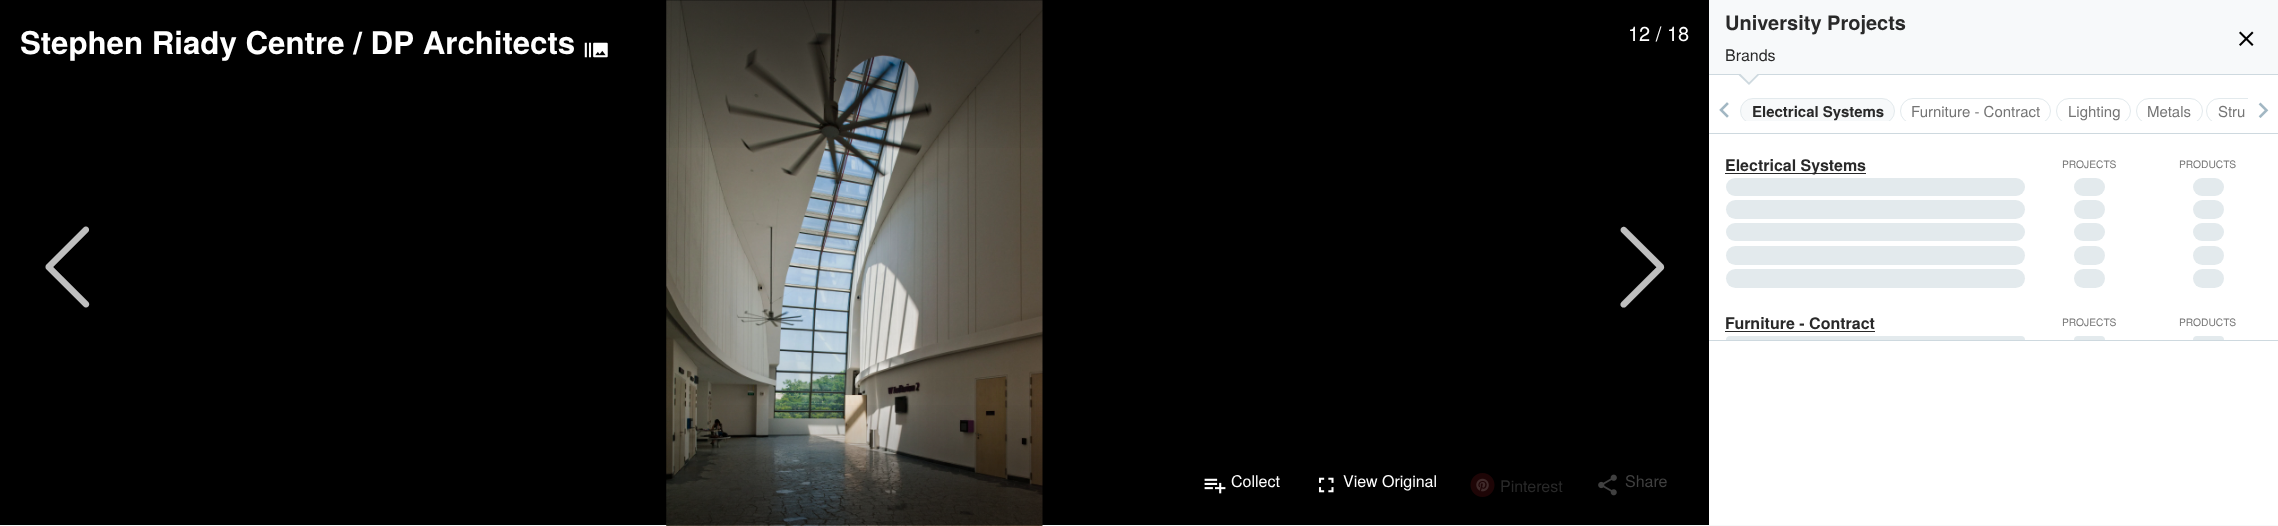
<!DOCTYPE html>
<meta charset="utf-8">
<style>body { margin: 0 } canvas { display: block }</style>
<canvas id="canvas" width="2278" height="526"></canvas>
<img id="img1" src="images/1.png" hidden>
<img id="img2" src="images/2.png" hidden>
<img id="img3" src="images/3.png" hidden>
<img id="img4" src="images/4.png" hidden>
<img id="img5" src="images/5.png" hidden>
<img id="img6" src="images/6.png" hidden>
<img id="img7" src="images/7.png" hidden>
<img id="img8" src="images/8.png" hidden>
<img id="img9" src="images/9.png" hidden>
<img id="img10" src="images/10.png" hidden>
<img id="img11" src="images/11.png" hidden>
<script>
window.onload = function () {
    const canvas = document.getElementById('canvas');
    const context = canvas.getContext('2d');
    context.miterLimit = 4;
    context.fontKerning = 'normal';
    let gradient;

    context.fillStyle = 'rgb(247, 249, 250)';
    context.fillRect(0, 0, 2278, 526);
    context.fillStyle = 'rgb(0, 0, 0)';
    context.fillRect(0, 0, 1709, 525);
    context.drawImage(document.getElementById('img1'), 666, 0, 377, 526);
    context.drawImage(document.getElementById('img2'), 584, 42, 24, 16);
    gradient = context.createLinearGradient(854, -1.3, 854, 155);
    gradient.addColorStop(0, 'rgba(0, 0, 0, 0.5)');
    gradient.addColorStop(1, 'rgba(0, 0, 0, 0)');
    context.fillStyle = gradient;
    context.fillRect(666, 0, 377, 148);
    context.drawImage(document.getElementById('img3'), 45, 226, 45, 82);
    context.drawImage(document.getElementById('img4'), 1620, 226, 45, 82);
    gradient = context.createLinearGradient(854, 525, 854, 400);
    gradient.addColorStop(0, 'rgba(0, 0, 0, 0.5)');
    gradient.addColorStop(1, 'rgba(0, 0, 0, 0)');
    context.fillStyle = gradient;
    context.fillRect(666, 405, 377, 120);
    context.drawImage(document.getElementById('img5'), 1204, 478, 22, 16);
    context.drawImage(document.getElementById('img6'), 1318, 477, 16, 16);
    context.drawImage(document.getElementById('img7'), 1470, 473, 25, 24);
    context.drawImage(document.getElementById('img8'), 1598, 474, 19, 22);
    context.fillStyle = 'rgb(255, 255, 255)';
    context.fillRect(1709, 75, 569, 450);
    context.fillStyle = 'rgb(206, 217, 223)';
    context.fillRect(1709, 74, 569, 1);
    context.beginPath();
    context.moveTo(1737.5, 74);
    context.lineTo(1760, 74);
    context.lineTo(1749, 85);
    context.closePath();
    context.fill();
    context.fillStyle = 'rgb(247, 249, 250)';
    context.beginPath();
    context.moveTo(1739, 72.5);
    context.lineTo(1759, 72.5);
    context.lineTo(1749, 82.5);
    context.closePath();
    context.fill();
    context.drawImage(document.getElementById('img9'), 1719, 102, 10, 16);
    context.save();
    context.beginPath();
    context.rect(1740, 90, 508, 31);
    context.clip();
    context.beginPath();
    context.roundRect(1740.5, 98.5, 154, 25, 12.5);
    context.fill();
    context.strokeStyle = 'rgb(227, 234, 237)';
    context.stroke();
    context.beginPath();
    context.roundRect(1900.5, 98.5, 150, 25, 12.5);
    context.stroke();
    context.beginPath();
    context.roundRect(2056.5, 98.5, 74, 25, 12.5);
    context.stroke();
    context.beginPath();
    context.roundRect(2136.5, 98.5, 66, 25, 12.5);
    context.stroke();
    context.restore();
    context.drawImage(document.getElementById('img10'), 2258, 102, 11, 16);
    context.save();
    context.beginPath();
    context.rect(1740, 90, 508, 31);
    context.clip();
    context.beginPath();
    context.roundRect(2206.5, 98.5, 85, 25, 12.5);
    context.strokeStyle = 'rgb(227, 234, 237)';
    context.stroke();
    context.restore();
    context.fillStyle = 'rgb(206, 217, 223)';
    context.fillRect(1709, 133, 569, 1);
    context.fillStyle = 'rgb(41, 41, 41)';
    context.fillRect(1725, 173, 141, 1);
    context.fillStyle = 'rgb(227, 234, 237)';
    context.beginPath();
    context.roundRect(1726, 178, 299, 18, 9);
    context.fill();
    context.beginPath();
    context.roundRect(2074, 178, 31, 18, 9);
    context.fill();
    context.beginPath();
    context.roundRect(2193, 178, 31, 18, 9);
    context.fill();
    context.beginPath();
    context.roundRect(1726, 200, 299, 19, 9.5);
    context.fill();
    context.beginPath();
    context.roundRect(2074, 200, 31, 19, 9.5);
    context.fill();
    context.beginPath();
    context.roundRect(2193, 200, 31, 19, 9.5);
    context.fill();
    context.beginPath();
    context.roundRect(1726, 223, 299, 18, 9);
    context.fill();
    context.beginPath();
    context.roundRect(2074, 223, 31, 18, 9);
    context.fill();
    context.beginPath();
    context.roundRect(2193, 223, 31, 18, 9);
    context.fill();
    context.beginPath();
    context.roundRect(1726, 246, 299, 19, 9.5);
    context.fill();
    context.beginPath();
    context.roundRect(2074, 246, 31, 19, 9.5);
    context.fill();
    context.beginPath();
    context.roundRect(2193, 246, 31, 19, 9.5);
    context.fill();
    context.beginPath();
    context.roundRect(1726, 269, 299, 19, 9.5);
    context.fill();
    context.beginPath();
    context.roundRect(2074, 269, 31, 19, 9.5);
    context.fill();
    context.beginPath();
    context.roundRect(2193, 269, 31, 19, 9.5);
    context.fill();
    context.fillStyle = 'rgb(41, 41, 41)';
    context.fillRect(1725, 331, 150, 1);
    context.fillStyle = 'rgb(227, 234, 237)';
    context.beginPath();
    context.roundRect(1726, 336, 299, 4, [9.5, 9.5, 0, 0]);
    context.fill();
    context.beginPath();
    context.roundRect(2074, 336, 31, 4, [9.5, 9.5, 0, 0]);
    context.fill();
    context.beginPath();
    context.roundRect(2193, 336, 31, 4, [9.5, 9.5, 0, 0]);
    context.fill();
    context.fillStyle = 'rgb(206, 217, 223)';
    context.fillRect(1709, 340, 569, 1);
    context.drawImage(document.getElementById('img11'), 2239, 31, 15, 15);
    context.font = 'bold 31.25px TeX Gyre Heros';
    context.fillStyle = 'rgb(255, 255, 255)';
    context.fillText('Stephen Riady Centre / DP Architects', 20, 54);
    context.font = '20px TeX Gyre Heros';
    context.fillText('12 / 18', 1628, 41);
    context.font = '16px TeX Gyre Heros';
    context.fillText('Collect', 1231, 487);
    context.fillText('View Original', 1343, 487);
    context.fillStyle = 'rgb(41, 41, 41)';
    context.fillText('Pinterest', 1500, 492);
    context.fillStyle = 'rgb(64, 64, 64)';
    context.fillText('Share', 1625, 487);
    context.font = 'bold 20px TeX Gyre Heros';
    context.fillStyle = 'rgb(41, 41, 41)';
    context.fillText('University Projects', 1725, 30);
    context.font = '16px TeX Gyre Heros';
    context.fillText('Brands', 1725, 61);
    context.font = 'bold 15px TeX Gyre Heros';
    context.fillText('Electrical Systems', 1752, 117);
    context.font = '15px TeX Gyre Heros';
    context.fillStyle = 'rgb(117, 117, 117)';
    context.fillText('Furniture - Contract', 1911, 117);
    context.fillText('Lighting', 2068, 117);
    context.fillText('Metals', 2147, 117);
    context.fillText('Stru', 2218, 117);
    context.font = 'bold 16px TeX Gyre Heros';
    context.fillStyle = 'rgb(41, 41, 41)';
    context.fillText('Electrical Systems', 1725, 171);
    context.font = '10.25px TeX Gyre Heros';
    context.fillStyle = 'rgb(117, 117, 117)';
    context.fillText('PROJECTS', 2062, 168);
    context.fillText('PRODUCTS', 2179, 168);
    context.font = 'bold 16px TeX Gyre Heros';
    context.fillStyle = 'rgb(41, 41, 41)';
    context.fillText('Furniture - Contract', 1725, 329);
    context.font = '10.25px TeX Gyre Heros';
    context.fillStyle = 'rgb(117, 117, 117)';
    context.fillText('PROJECTS', 2062, 326);
    context.fillText('PRODUCTS', 2179, 326);
};
</script>
